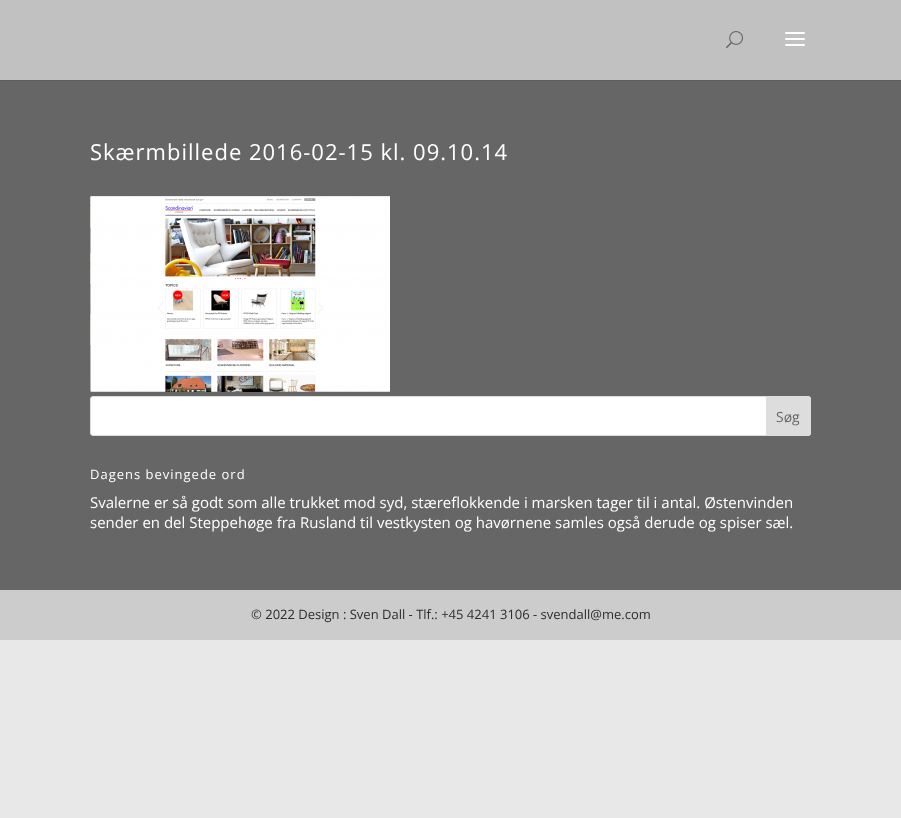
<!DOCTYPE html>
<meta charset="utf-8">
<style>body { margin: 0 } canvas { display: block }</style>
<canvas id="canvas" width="901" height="818"></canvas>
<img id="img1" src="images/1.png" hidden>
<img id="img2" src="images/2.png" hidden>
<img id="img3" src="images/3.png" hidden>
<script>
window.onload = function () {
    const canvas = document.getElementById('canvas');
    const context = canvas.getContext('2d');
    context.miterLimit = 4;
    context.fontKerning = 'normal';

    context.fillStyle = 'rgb(232, 232, 232)';
    context.fillRect(0, 0, 901, 818);
    context.fillStyle = 'rgb(92, 92, 92)';
    context.fillRect(0, 80, 901, 1);
    context.fillStyle = 'rgb(193, 193, 193)';
    context.fillRect(0, 0, 901, 80);
    context.drawImage(document.getElementById('img1'), 726, 31, 17, 17);
    context.drawImage(document.getElementById('img2'), 785, 32, 20, 14);
    context.fillStyle = 'rgb(102, 102, 102)';
    context.fillRect(0, 81, 901, 509);
    context.drawImage(document.getElementById('img3'), 90, 196, 300, 196);
    context.fillStyle = 'rgb(255, 255, 255)';
    context.beginPath();
    context.roundRect(90.5, 396.5, 720, 39, 2.5);
    context.fill();
    context.strokeStyle = 'rgb(221, 221, 221)';
    context.stroke();
    context.fillStyle = 'rgb(221, 221, 221)';
    context.beginPath();
    context.roundRect(766.5, 396.5, 44, 39, [0, 2.5, 2.5, 0]);
    context.fill();
    context.stroke();
    context.fillStyle = 'rgb(204, 204, 204)';
    context.fillRect(0, 590, 901, 50);
    context.letterSpacing = '1px';
    context.font = '22px Open Sans';
    context.fillStyle = 'rgb(255, 255, 255)';
    context.fillText('Skærmbillede 2016-02-15 kl. 09.10.14', 90, 160);
    context.letterSpacing = '0px';
    context.font = '14px Open Sans';
    context.fillStyle = 'rgb(102, 102, 102)';
    context.fillText('Søg', 776, 422);
    context.letterSpacing = '1px';
    context.font = '13px Open Sans';
    context.fillStyle = 'rgb(255, 255, 255)';
    context.fillText('Dagens bevingede ord', 90, 479);
    context.letterSpacing = '0px';
    context.font = '15px Open Sans';
    context.fillText('Svalerne er så godt som alle trukket mod syd, stæreflokkende i marsken tager til i antal. Østenvinden', 90, 508);
    context.fillText('sender en del Steppehøge fra Rusland til vestkysten og havørnene samles også derude og spiser sæl.', 90, 528);
    context.font = '13px Open Sans';
    context.fillStyle = 'rgb(45, 45, 45)';
    context.fillText('© 2022 Design : Sven Dall - Tlf.: +45 4241 3106 - svendall@me.com', 251, 619);
};
</script>
